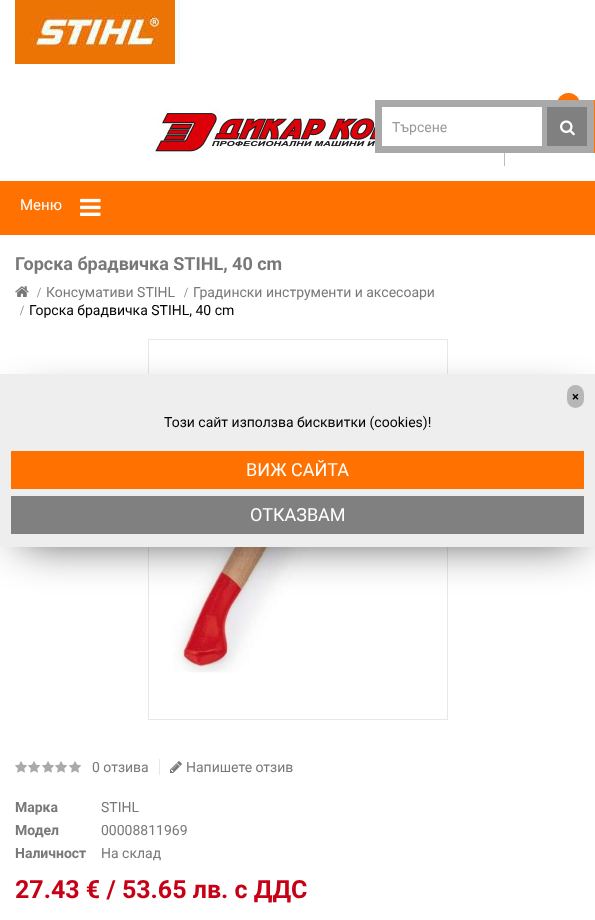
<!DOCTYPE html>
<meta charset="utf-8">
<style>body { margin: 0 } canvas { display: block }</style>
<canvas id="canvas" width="595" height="920"></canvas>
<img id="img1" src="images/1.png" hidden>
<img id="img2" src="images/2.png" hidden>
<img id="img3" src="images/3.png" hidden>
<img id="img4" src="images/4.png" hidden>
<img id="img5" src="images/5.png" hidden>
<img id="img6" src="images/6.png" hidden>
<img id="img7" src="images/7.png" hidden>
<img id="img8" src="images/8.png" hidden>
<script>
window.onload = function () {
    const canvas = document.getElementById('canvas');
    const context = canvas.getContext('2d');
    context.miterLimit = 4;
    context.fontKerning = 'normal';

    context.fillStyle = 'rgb(255, 255, 255)';
    context.fillRect(0, 0, 595, 920);
    context.fillStyle = 'rgb(255, 113, 0)';
    context.fillRect(0, 181, 595, 54);
    context.drawImage(document.getElementById('img1'), 15, 0, 165, 64);
    context.beginPath();
    context.arc(568.5, 104.5, 11.5, 0, 2 * Math.PI);
    context.fill();
    context.fillStyle = 'rgb(188, 188, 188)';
    context.fillRect(504, 153, 1, 13);
    context.drawImage(document.getElementById('img2'), 155, 109, 329, 48);
    context.fillStyle = 'rgb(169, 169, 169)';
    context.fillRect(375, 100, 219, 53);
    context.fillStyle = 'rgb(255, 113, 0)';
    context.fillRect(594, 100, 1, 53);
    context.fillStyle = 'rgb(255, 255, 255)';
    context.fillRect(382, 107, 160, 39);
    context.fillStyle = 'rgb(128, 128, 128)';
    context.fillRect(547, 107, 40, 39);
    context.drawImage(document.getElementById('img3'), 560, 120, 15, 16);
    context.drawImage(document.getElementById('img4'), 80, 198, 21, 18);
    context.drawImage(document.getElementById('img5'), 15, 286, 14, 11);
    context.strokeStyle = 'rgb(232, 232, 232)';
    context.strokeRect(148.5, 339.5, 299, 380);
    context.drawImage(document.getElementById('img6'), 172, 547, 241, 126);
    context.drawImage(document.getElementById('img7'), 15, 761, 12, 12);
    context.drawImage(document.getElementById('img7'), 28, 761, 12, 12);
    context.drawImage(document.getElementById('img7'), 42, 761, 12, 12);
    context.drawImage(document.getElementById('img7'), 55, 761, 12, 12);
    context.drawImage(document.getElementById('img7'), 69, 761, 12, 12);
    context.fillStyle = 'rgb(232, 232, 232)';
    context.fillRect(159, 759, 1, 16);
    context.drawImage(document.getElementById('img8'), 170, 761, 12, 12);
    context.fillStyle = 'rgba(0, 0, 0, 0.75)';
    context.filter = 'blur(23px)';
    context.beginPath();
    context.rect(22, 406, 557, 135);
    context.fill();
    context.filter = 'none';
    context.fillStyle = 'rgb(238, 238, 238)';
    context.fillRect(0, 374, 595, 173);
    context.fillStyle = 'rgb(183, 183, 183)';
    context.beginPath();
    context.roundRect(567, 385, 17, 23, 8.5);
    context.fill();
    context.fillStyle = 'rgb(255, 113, 0)';
    context.fillRect(11, 451, 573, 38);
    context.fillStyle = 'rgb(128, 128, 128)';
    context.fillRect(11, 496, 573, 38);
    context.font = '14px Roboto';
    context.fillStyle = 'rgb(153, 153, 153)';
    context.fillText('Търсене', 392, 132);
    context.font = '15px Roboto';
    context.fillStyle = 'rgb(255, 255, 255)';
    context.fillText('Меню', 20, 210);
    context.font = 'bold 18px Roboto';
    context.fillStyle = 'rgb(120, 120, 120)';
    context.fillText('Горска брадвичка STIHL, 40 cm', 15, 270);
    context.font = '14px Liberation Serif';
    context.fillText('/', 37, 297);
    context.font = '14px Roboto';
    context.fillText('Консумативи STIHL', 46, 297);
    context.font = '14px Liberation Serif';
    context.fillText('/', 184, 297);
    context.font = '14px Roboto';
    context.fillText('Градински инструменти и аксесоари', 193, 297);
    context.font = '14px Liberation Serif';
    context.fillText('/', 20, 315);
    context.font = '14px Roboto';
    context.fillStyle = 'rgb(0, 0, 0)';
    context.fillText('Горска брадвичка STIHL, 40 cm', 29, 315);
    context.fillStyle = 'rgb(120, 120, 120)';
    context.fillText('0 отзива', 92, 772);
    context.fillText('Напишете отзив', 186, 772);
    context.font = 'bold 14px Roboto';
    context.fillText('Марка', 15, 812);
    context.font = '14px Roboto';
    context.fillText('STIHL', 101, 812);
    context.font = 'bold 14px Roboto';
    context.fillText('Модел', 15, 835);
    context.font = '14px Roboto';
    context.fillText('00008811969', 101, 835);
    context.font = 'bold 14px Roboto';
    context.fillText('Наличност', 15, 858);
    context.font = '14px Roboto';
    context.fillText('На склад', 101, 858);
    context.font = 'bold 25px Roboto';
    context.fillStyle = 'rgb(200, 0, 22)';
    context.fillText('27.43 € / 53.65 лв. с ДДС', 15, 898);
    context.font = 'bold 13px Roboto';
    context.fillStyle = 'rgb(0, 0, 0)';
    context.fillText('×', 572, 401);
    context.font = '14px Roboto';
    context.fillText('Този сайт използва бисквитки (cookies)!', 164, 427);
    context.font = '18px Roboto';
    context.fillStyle = 'rgb(255, 255, 255)';
    context.fillText('ВИЖ САЙТА', 246, 476);
    context.fillText('ОТКАЗВАМ', 250, 521);
};
</script>
